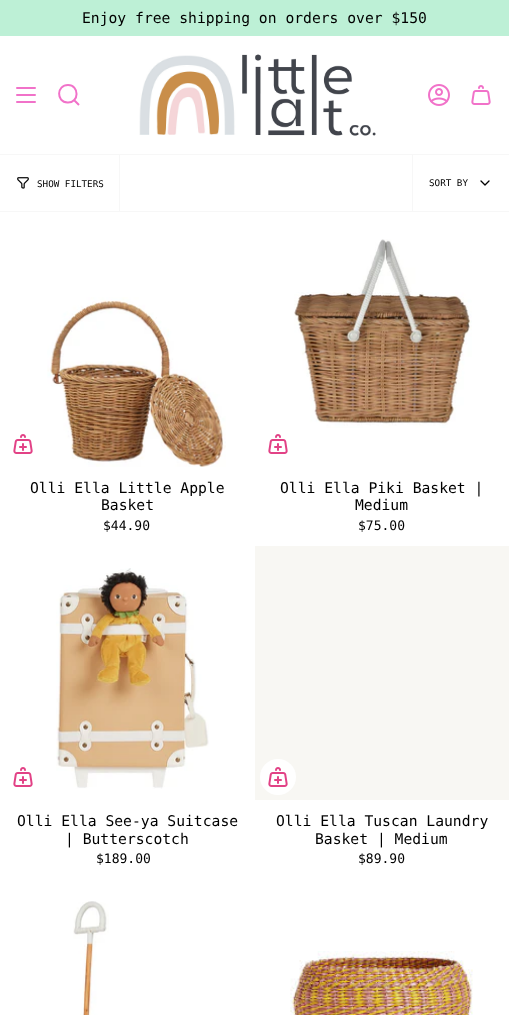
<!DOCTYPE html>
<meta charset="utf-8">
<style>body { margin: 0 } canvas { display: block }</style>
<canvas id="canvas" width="509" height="1015"></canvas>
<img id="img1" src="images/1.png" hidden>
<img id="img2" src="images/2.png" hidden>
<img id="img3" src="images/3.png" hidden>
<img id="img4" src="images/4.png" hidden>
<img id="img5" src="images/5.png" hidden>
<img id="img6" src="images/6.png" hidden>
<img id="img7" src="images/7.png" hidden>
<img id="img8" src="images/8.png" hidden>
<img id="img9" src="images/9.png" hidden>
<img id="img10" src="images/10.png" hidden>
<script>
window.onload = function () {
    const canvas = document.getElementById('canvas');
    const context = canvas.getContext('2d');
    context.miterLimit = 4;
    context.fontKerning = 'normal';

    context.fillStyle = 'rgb(255, 255, 255)';
    context.fillRect(0, 0, 509, 1015);
    context.fillStyle = 'rgb(189, 240, 214)';
    context.fillRect(0, 0, 509, 36);
    context.beginPath();
    context.moveTo(17, 88);
    context.lineTo(35, 88);
    context.moveTo(17, 95);
    context.lineTo(35, 95);
    context.moveTo(17, 102);
    context.lineTo(35, 102);
    context.strokeStyle = 'rgb(241, 114, 201)';
    context.lineWidth = 2;
    context.lineCap = 'round';
    context.lineJoin = 'round';
    context.stroke();
    context.beginPath();
    context.moveTo(68, 85);
    context.bezierCurveTo(79.5, 85, 79.5, 103, 67.5, 102.5);
    context.bezierCurveTo(56, 102, 56.5, 85, 68, 85);
    context.closePath();
    context.moveTo(74, 100);
    context.lineTo(79, 105);
    context.lineCap = 'butt';
    context.lineJoin = 'miter';
    context.stroke();
    context.drawImage(document.getElementById('img1'), 139, 54, 237, 82);
    context.drawImage(document.getElementById('img2'), 428, 84, 22, 22);
    context.drawImage(document.getElementById('img3'), 471, 85, 20, 20);
    context.fillStyle = 'rgb(247, 247, 247)';
    context.fillRect(0, 154, 509, 1);
    context.fillRect(0, 211, 509, 1);
    context.fillRect(119, 155, 1, 56);
    context.drawImage(document.getElementById('img4'), 17, 177, 12, 12);
    context.fillRect(412, 155, 1, 56);
    context.beginPath();
    context.moveTo(481, 181);
    context.lineTo(485, 185);
    context.lineTo(489, 181);
    context.strokeStyle = 'rgb(0, 0, 0)';
    context.lineWidth = 1.3;
    context.lineCap = 'round';
    context.lineJoin = 'round';
    context.stroke();
    context.drawImage(document.getElementById('img5'), 13, 434, 20, 20);
    context.drawImage(document.getElementById('img6'), 47, 297, 179, 170);
    context.drawImage(document.getElementById('img7'), 294, 239, 178, 189);
    context.drawImage(document.getElementById('img5'), 268, 434, 20, 20);
    context.drawImage(document.getElementById('img5'), 13, 767, 20, 20);
    context.drawImage(document.getElementById('img8'), 56, 568, 153, 221);
    context.fillStyle = 'rgb(248, 247, 243)';
    context.fillRect(255, 546, 254, 254);
    context.fillStyle = 'rgb(255, 255, 255)';
    context.beginPath();
    context.arc(278, 777, 18, 0, 2 * Math.PI);
    context.fill();
    context.drawImage(document.getElementById('img5'), 268, 767, 20, 20);
    context.drawImage(document.getElementById('img9'), 73, 901, 36, 114);
    context.drawImage(document.getElementById('img10'), 290, 951, 183, 64);
    context.font = '14.7px DejaVu Sans Mono';
    context.fillStyle = 'rgb(0, 0, 0)';
    context.fillText('Enjoy free shipping on orders over $150', 82, 23);
    context.font = '9.25px DejaVu Sans Mono';
    context.fillText('SHOW FILTERS', 37, 187);
    context.fillText('SORT BY', 429, 186);
    context.font = '14.7px DejaVu Sans Mono';
    context.fillText('Olli Ella Little Apple', 30, 493);
    context.fillText('Basket', 101, 510);
    context.font = '13px DejaVu Sans Mono';
    context.fillText('$44.90', 103, 530);
    context.font = '14.7px DejaVu Sans Mono';
    context.fillText('Olli Ella Piki Basket |', 280, 493);
    context.fillText('Medium', 355, 510);
    context.font = '13px DejaVu Sans Mono';
    context.fillText('$75.00', 358, 530);
    context.font = '14.7px DejaVu Sans Mono';
    context.fillText('Olli Ella See-ya Suitcase', 17, 826);
    context.fillText('| Butterscotch', 65, 844);
    context.font = '13px DejaVu Sans Mono';
    context.fillText('$189.00', 96, 863);
    context.font = '14.7px DejaVu Sans Mono';
    context.fillText('Olli Ella Tuscan Laundry', 276, 826);
    context.fillText('Basket | Medium', 315, 844);
    context.font = '13px DejaVu Sans Mono';
    context.fillText('$89.90', 358, 863);
};
</script>
